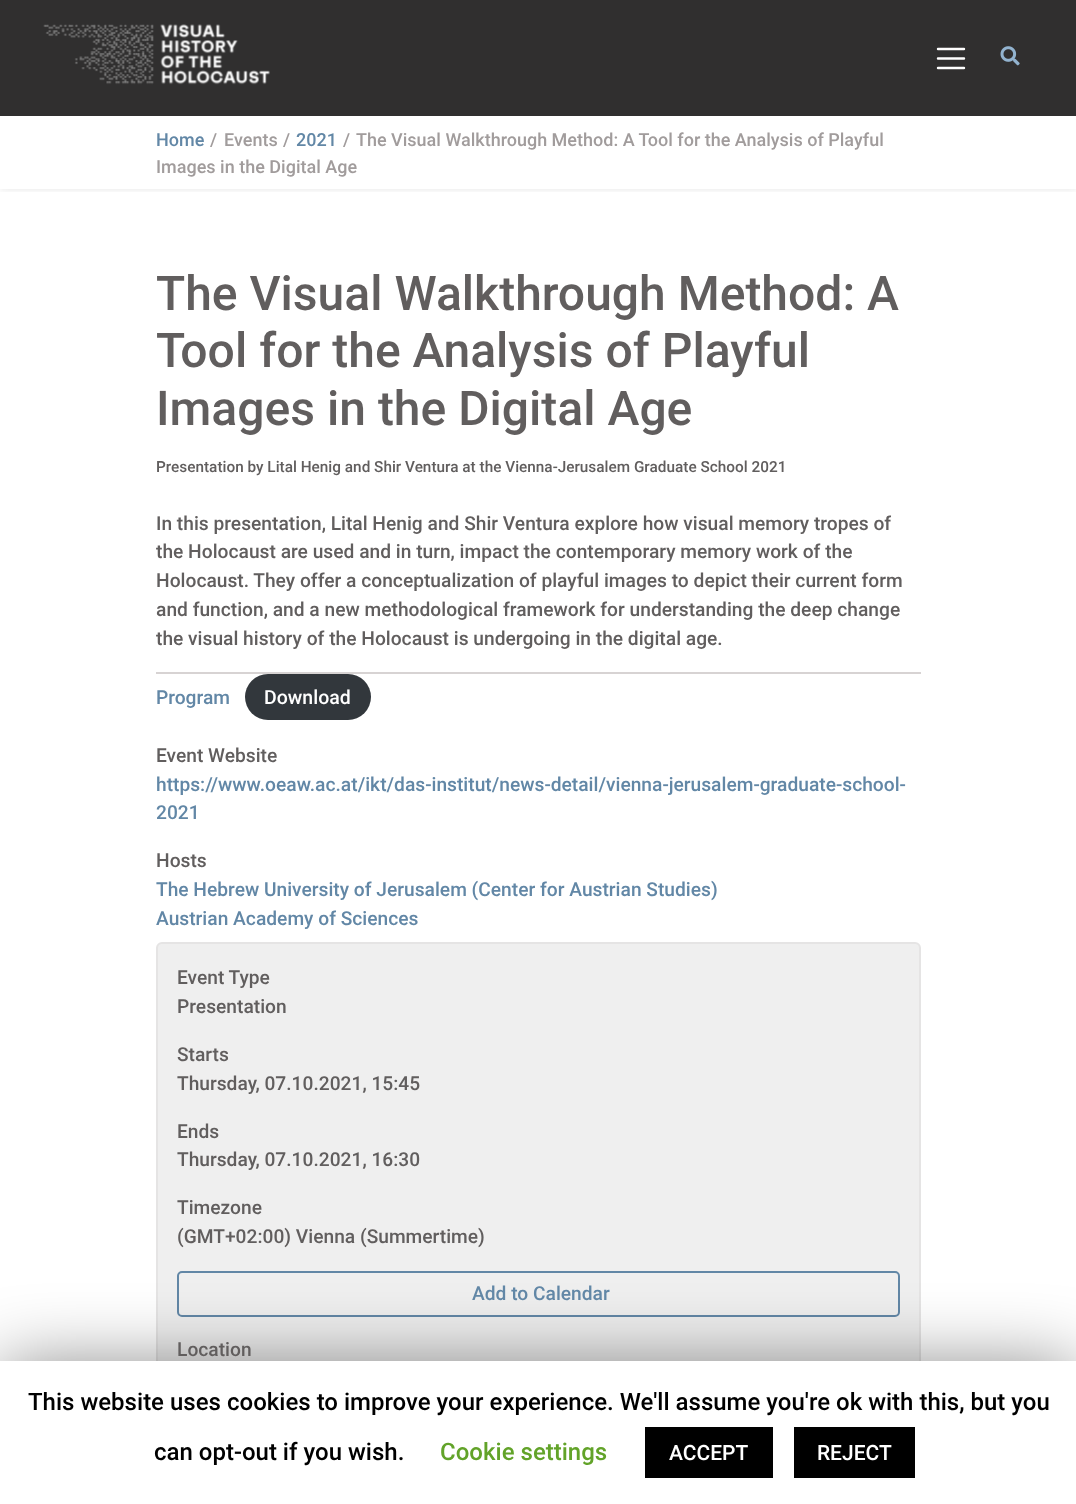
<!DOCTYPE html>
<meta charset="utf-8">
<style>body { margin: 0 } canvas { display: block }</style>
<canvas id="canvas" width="1076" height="1504"></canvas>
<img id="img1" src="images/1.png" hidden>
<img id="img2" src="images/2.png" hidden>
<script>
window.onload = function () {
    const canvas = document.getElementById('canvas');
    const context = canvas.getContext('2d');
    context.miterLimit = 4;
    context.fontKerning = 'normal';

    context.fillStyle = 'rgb(255, 255, 255)';
    context.fillRect(0, 0, 1076, 1504);
    context.save();
    context.beginPath();
    context.rect(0, 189, 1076, 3);
    context.clip();
    context.fillStyle = 'rgba(0, 0, 0, 0.1)';
    context.filter = 'blur(4px)';
    context.beginPath();
    context.rect(0, 114, 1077, 75);
    context.fill();
    context.filter = 'none';
    context.restore();
    context.fillStyle = 'rgb(48, 47, 47)';
    context.fillRect(0, 0, 1076, 116);
    context.drawImage(document.getElementById('img1'), 43, 24, 227, 61);
    context.beginPath();
    context.moveTo(938, 49);
    context.lineTo(964, 49);
    context.moveTo(938, 58.5);
    context.lineTo(964, 58.5);
    context.moveTo(938, 68);
    context.lineTo(964, 68);
    context.strokeStyle = 'rgb(255, 255, 255)';
    context.lineWidth = 2.4;
    context.lineCap = 'round';
    context.stroke();
    context.drawImage(document.getElementById('img2'), 1000, 46, 20, 20);
    context.fillStyle = 'rgb(215, 211, 211)';
    context.fillRect(156, 672, 765, 2);
    context.fillStyle = 'rgb(50, 55, 60)';
    context.beginPath();
    context.roundRect(245, 674, 126, 46, 23);
    context.fill();
    context.fillStyle = 'rgb(239, 239, 239)';
    context.beginPath();
    context.roundRect(157, 943, 763, 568, 5);
    context.fill();
    context.strokeStyle = 'rgb(229, 228, 228)';
    context.lineWidth = 2;
    context.stroke();
    context.beginPath();
    context.roundRect(178, 1272, 721, 44, 4);
    context.strokeStyle = 'rgb(98, 135, 166)';
    context.stroke();
    context.fillStyle = 'rgba(0, 0, 0, 0.5)';
    context.filter = 'blur(37.5px)';
    context.beginPath();
    context.rect(0, 1368, 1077, 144);
    context.fill();
    context.filter = 'none';
    context.fillStyle = 'rgb(255, 255, 255)';
    context.fillRect(0, 1361, 1076, 143);
    context.fillStyle = 'rgb(0, 0, 0)';
    context.fillRect(645, 1427, 128, 51);
    context.fillRect(794, 1427, 121, 51);
    context.font = '500 18px Roboto';
    context.fillStyle = 'rgb(98, 135, 166)';
    context.fillText('Home', 156, 146);
    context.fillStyle = 'rgb(161, 156, 156)';
    context.fillText('/', 210, 146);
    context.fillText('Events', 224, 146);
    context.fillText('/', 283, 146);
    context.fillStyle = 'rgb(98, 135, 166)';
    context.fillText('2021', 296, 146);
    context.fillStyle = 'rgb(161, 156, 156)';
    context.fillText('/', 343, 146);
    context.fillText('The Visual Walkthrough Method: A Tool for the Analysis of Playful', 356, 146);
    context.fillText('Images in the Digital Age', 156, 173);
    context.font = '500 48px Roboto';
    context.fillStyle = 'rgb(97, 94, 94)';
    context.fillText('The Visual Walkthrough Method: A', 156, 310);
    context.fillText('Tool for the Analysis of Playful', 156, 367);
    context.fillText('Images in the Digital Age', 156, 425);
    context.font = '500 15.35px Roboto';
    context.fillText('Presentation by Lital Henig and Shir Ventura at the Vienna-Jerusalem Graduate School 2021', 156, 472);
    context.font = '500 19.2px Roboto';
    context.fillText('In this presentation, Lital Henig and Shir Ventura explore how visual memory tropes of', 156, 530);
    context.fillText('the Holocaust are used and in turn, impact the contemporary memory work of the', 156, 558);
    context.fillText('Holocaust. They offer a conceptualization of playful images to depict their current form', 156, 587);
    context.fillText('and function, and a new methodological framework for understanding the deep change', 156, 616);
    context.fillText('the visual history of the Holocaust is undergoing in the digital age.', 156, 645);
    context.fillStyle = 'rgb(98, 135, 166)';
    context.fillText('Program', 156, 704);
    context.font = '500 19.5px Roboto';
    context.fillStyle = 'rgb(255, 255, 255)';
    context.fillText('Download', 264, 704);
    context.font = '500 19.2px Roboto';
    context.fillStyle = 'rgb(97, 94, 94)';
    context.fillText('Event Website', 156, 762);
    context.fillStyle = 'rgb(98, 135, 166)';
    context.fillText('https://www.oeaw.ac.at/ikt/das-institut/news-detail/vienna-jerusalem-graduate-school-', 156, 791);
    context.fillText('2021', 156, 819);
    context.fillStyle = 'rgb(97, 94, 94)';
    context.fillText('Hosts', 156, 867);
    context.fillStyle = 'rgb(98, 135, 166)';
    context.fillText('The Hebrew University of Jerusalem (Center for Austrian Studies)', 156, 896);
    context.fillText('Austrian Academy of Sciences', 156, 925);
    context.fillStyle = 'rgb(97, 94, 94)';
    context.fillText('Event Type', 177, 984);
    context.fillText('Presentation', 177, 1013);
    context.fillText('Starts', 177, 1061);
    context.fillText('Thursday, 07.10.2021, 15:45', 177, 1090);
    context.fillText('Ends', 177, 1138);
    context.fillText('Thursday, 07.10.2021, 16:30', 177, 1166);
    context.fillText('Timezone', 177, 1214);
    context.fillText('(GMT+02:00) Vienna (Summertime)', 177, 1243);
    context.fillStyle = 'rgb(98, 135, 166)';
    context.fillText('Add to Calendar', 472, 1300);
    context.fillStyle = 'rgb(97, 94, 94)';
    context.fillText('Location', 177, 1356);
    context.font = '500 24px Roboto';
    context.fillStyle = 'rgb(0, 0, 0)';
    context.fillText('This website uses cookies to improve your experience. We\'ll assume you\'re ok with this, but you', 28, 1410);
    context.fillText('can opt-out if you wish.', 154, 1460);
    context.fillStyle = 'rgb(98, 163, 41)';
    context.fillText('Cookie settings', 440, 1460);
    context.font = '500 21px Roboto';
    context.fillStyle = 'rgb(255, 255, 255)';
    context.fillText('ACCEPT', 669, 1460);
    context.fillText('REJECT', 817, 1460);
};
</script>
